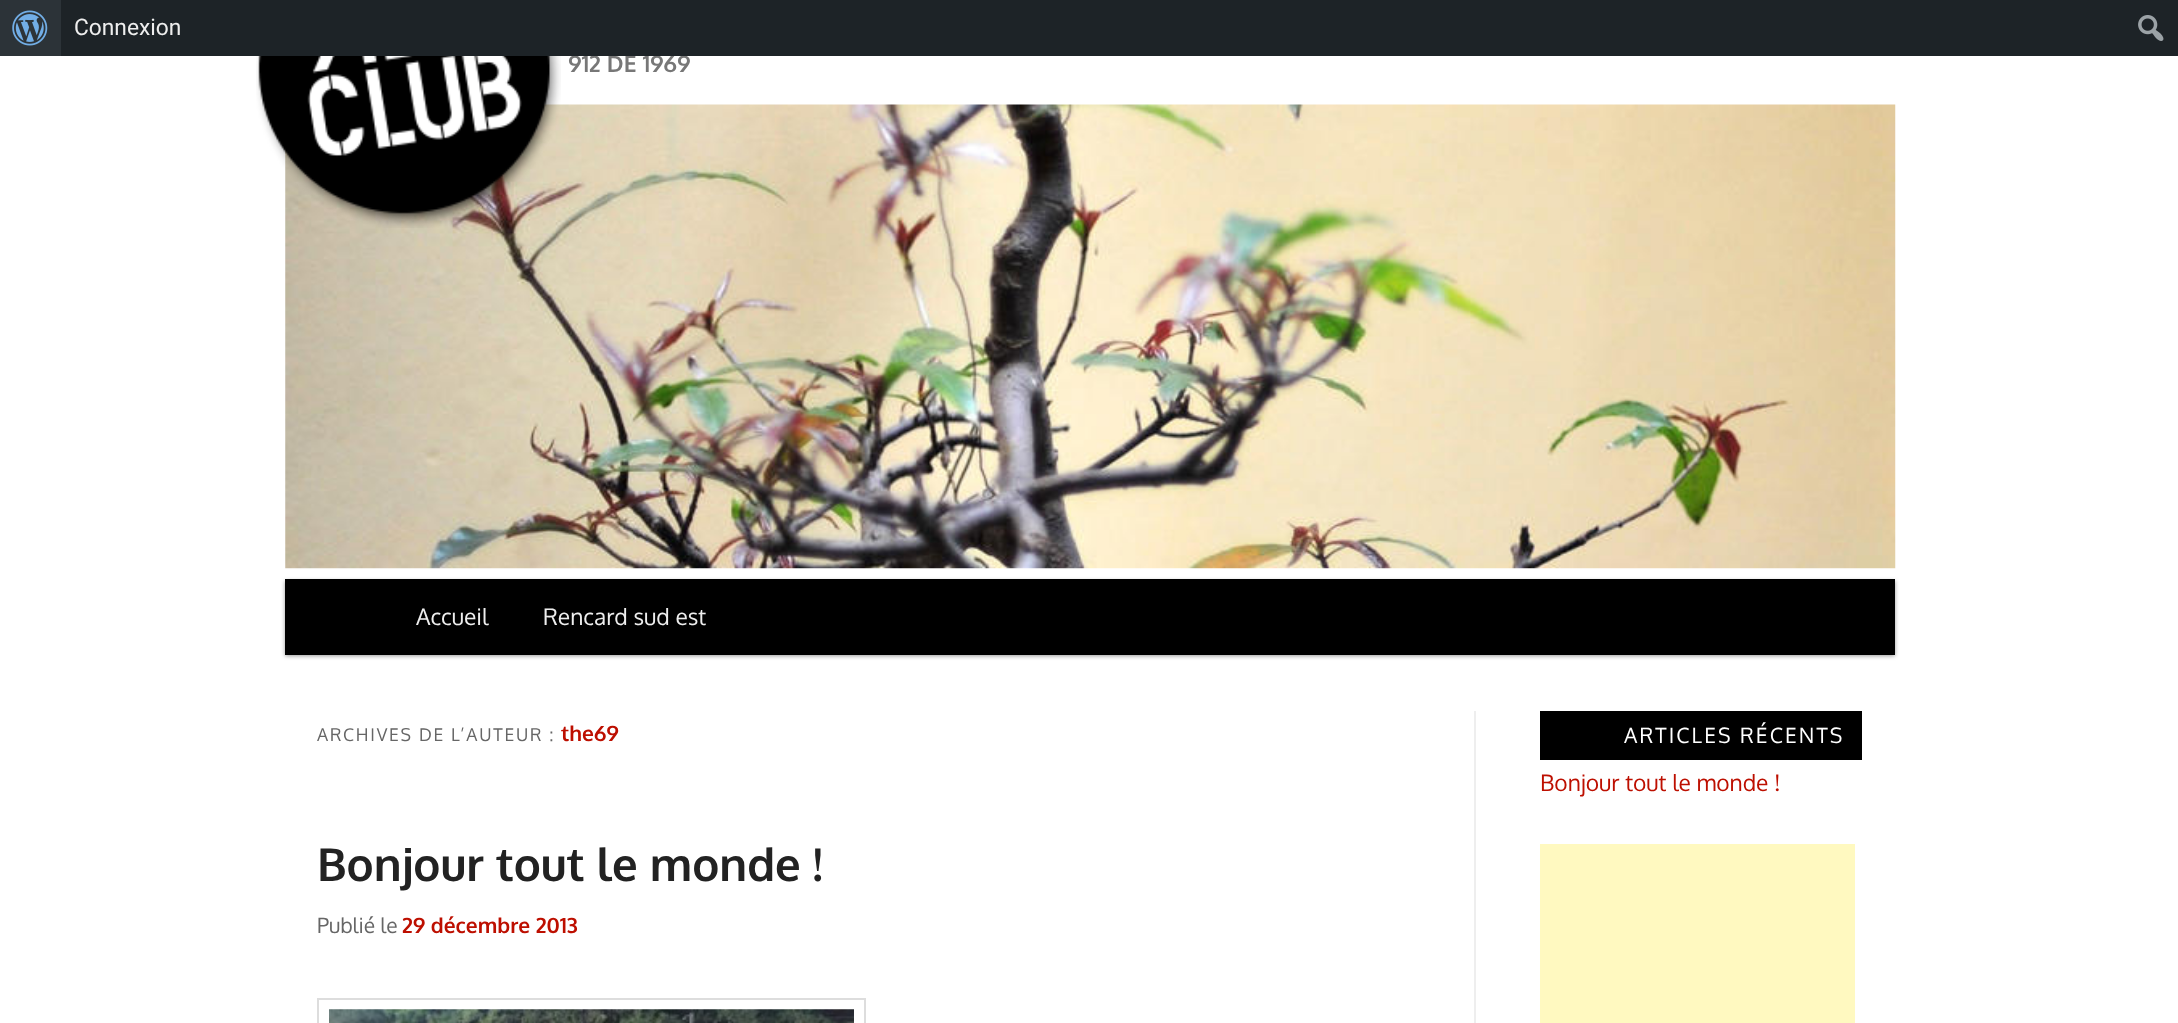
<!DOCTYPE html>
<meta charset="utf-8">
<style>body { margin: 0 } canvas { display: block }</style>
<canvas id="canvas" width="2178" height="1023"></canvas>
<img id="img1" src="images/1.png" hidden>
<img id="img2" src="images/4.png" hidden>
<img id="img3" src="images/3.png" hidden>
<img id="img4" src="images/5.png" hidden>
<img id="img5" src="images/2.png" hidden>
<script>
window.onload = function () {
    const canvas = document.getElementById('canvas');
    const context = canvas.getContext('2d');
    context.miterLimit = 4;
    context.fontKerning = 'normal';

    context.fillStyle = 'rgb(255, 255, 255)';
    context.fillRect(0, 0, 2178, 1023);
    context.fillStyle = 'rgb(44, 51, 56)';
    context.fillRect(0, 0, 61, 56);
    context.drawImage(document.getElementById('img1'), 12, 10, 36, 36);
    context.drawImage(document.getElementById('img2'), 285, 104, 1611, 465);
    context.drawImage(document.getElementById('img3'), 256, 56, 305, 172);
    context.fillStyle = 'rgba(0, 0, 0, 0.4)';
    context.filter = 'blur(2px)';
    context.beginPath();
    context.rect(285, 581, 1610, 75);
    context.fill();
    context.filter = 'none';
    context.fillStyle = 'rgb(0, 0, 0)';
    context.fillRect(285, 579, 1610, 76);
    context.strokeStyle = 'rgb(221, 221, 221)';
    context.lineWidth = 2;
    context.strokeRect(318, 999, 547, 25);
    context.drawImage(document.getElementById('img4'), 329, 1009, 525, 14);
    context.fillStyle = 'rgb(238, 238, 238)';
    context.fillRect(1474, 711, 2, 312);
    context.fillStyle = 'rgb(0, 0, 0)';
    context.fillRect(1540, 711, 322, 49);
    context.fillStyle = 'rgb(255, 249, 192)';
    context.fillRect(1540, 844, 315, 179);
    context.font = 'bold 22.75px Oxygen';
    context.fillStyle = 'rgb(119, 119, 119)';
    context.fillText('912 DE 1969', 568, 72);
    context.fillStyle = 'rgb(29, 35, 39)';
    context.fillRect(61, 0, 2117, 56);
    context.drawImage(document.getElementById('img5'), 2138, 15, 26, 26);
    context.font = '22.75px Roboto';
    context.fillStyle = 'rgb(238, 238, 238)';
    context.fillText('Connexion', 74, 35);
    context.font = '22.75px Oxygen';
    context.fillText('Accueil', 416, 625);
    context.fillText('Rencard sud est', 543, 625);
    context.letterSpacing = '1.75px';
    context.font = '17.5px Oxygen';
    context.fillStyle = 'rgb(102, 102, 102)';
    context.fillText('ARCHIVES DE L’AUTEUR :', 317, 741);
    context.letterSpacing = '0px';
    context.font = 'bold 21px Oxygen';
    context.fillStyle = 'rgb(189, 15, 0)';
    context.fillText('the69', 561, 741);
    context.font = 'bold 45.5px Oxygen';
    context.fillStyle = 'rgb(34, 34, 34)';
    context.fillText('Bonjour tout le monde !', 317, 881);
    context.font = '21px Oxygen';
    context.fillStyle = 'rgb(102, 102, 102)';
    context.fillText('Publié le', 317, 933);
    context.font = 'bold 21px Oxygen';
    context.fillStyle = 'rgb(189, 15, 0)';
    context.fillText('29 décembre 2013', 402, 933);
    context.letterSpacing = '2.1px';
    context.font = '21px Oxygen';
    context.fillStyle = 'rgb(255, 255, 255)';
    context.fillText('ARTICLES RÉCENTS', 1624, 743);
    context.letterSpacing = '0px';
    context.font = '22.75px Oxygen';
    context.fillStyle = 'rgb(189, 15, 0)';
    context.fillText('Bonjour tout le monde !', 1540, 791);
};
</script>
